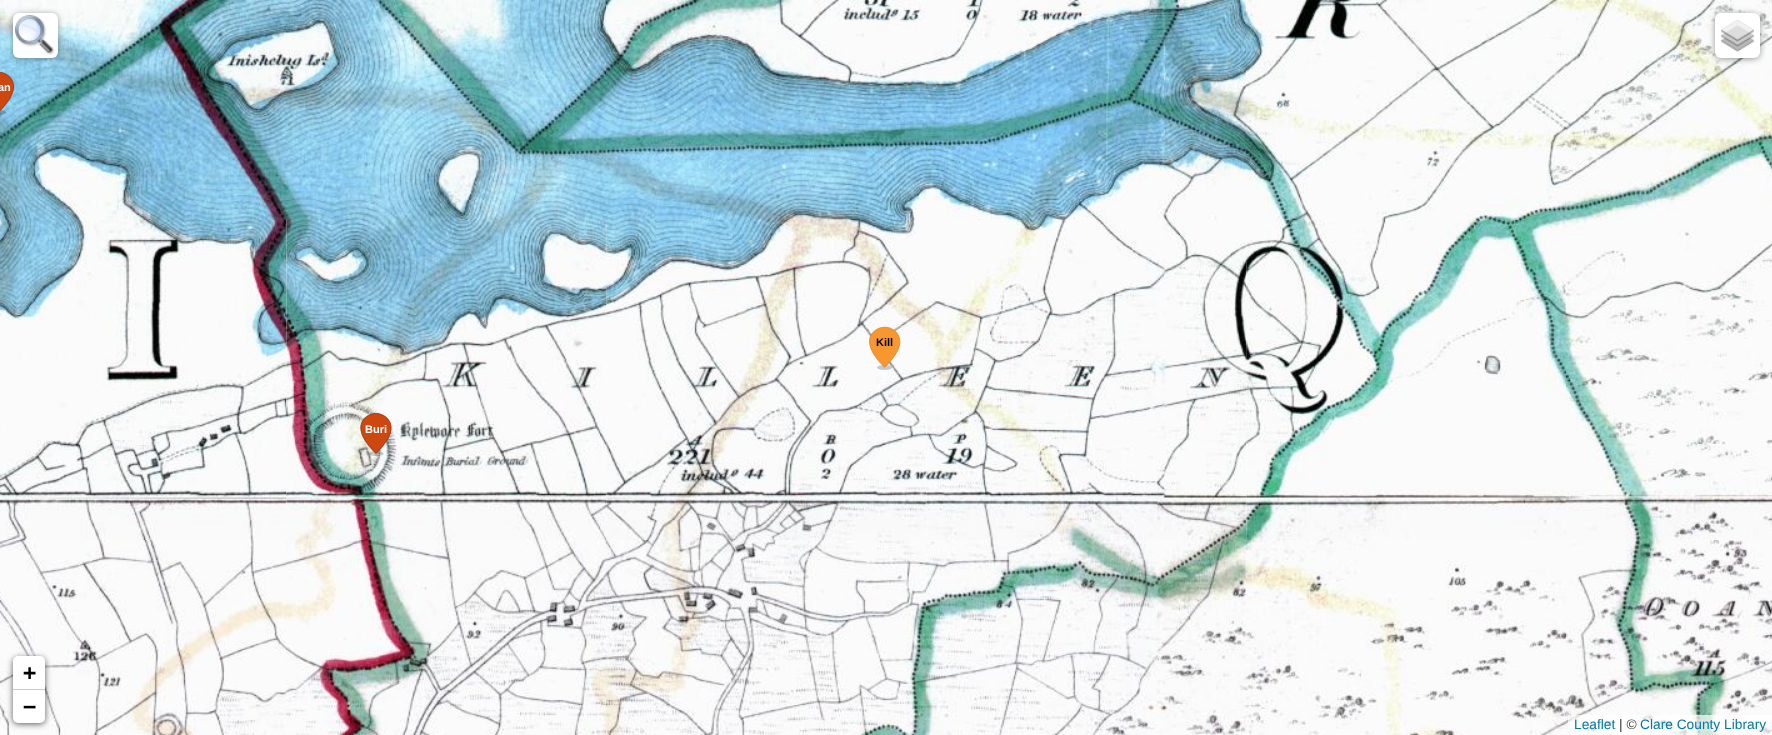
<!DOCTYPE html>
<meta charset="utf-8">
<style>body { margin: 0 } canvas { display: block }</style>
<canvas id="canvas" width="1772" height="735"></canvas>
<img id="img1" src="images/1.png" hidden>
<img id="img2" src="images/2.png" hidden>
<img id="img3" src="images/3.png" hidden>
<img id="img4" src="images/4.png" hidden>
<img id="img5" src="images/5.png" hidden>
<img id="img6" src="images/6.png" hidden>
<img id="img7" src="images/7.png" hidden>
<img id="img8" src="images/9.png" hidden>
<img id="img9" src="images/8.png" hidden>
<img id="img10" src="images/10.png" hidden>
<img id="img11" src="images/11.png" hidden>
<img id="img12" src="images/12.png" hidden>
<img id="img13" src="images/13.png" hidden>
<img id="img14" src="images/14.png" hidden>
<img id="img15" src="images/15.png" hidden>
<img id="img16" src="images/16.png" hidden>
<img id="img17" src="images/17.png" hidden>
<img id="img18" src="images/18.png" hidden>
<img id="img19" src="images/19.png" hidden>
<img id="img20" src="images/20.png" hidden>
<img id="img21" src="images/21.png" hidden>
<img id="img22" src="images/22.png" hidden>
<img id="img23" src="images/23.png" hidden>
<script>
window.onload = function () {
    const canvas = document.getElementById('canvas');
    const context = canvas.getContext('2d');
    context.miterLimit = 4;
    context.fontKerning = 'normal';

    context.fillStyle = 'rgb(255, 255, 255)';
    context.fillRect(0, 0, 1772, 735);
    context.drawImage(document.getElementById('img1'), 0, 0, 286, 220);
    context.drawImage(document.getElementById('img2'), 286, 0, 320, 220);
    context.drawImage(document.getElementById('img3'), 606, 0, 320, 220);
    context.drawImage(document.getElementById('img4'), 926, 0, 320, 220);
    context.drawImage(document.getElementById('img5'), 1246, 0, 320, 220);
    context.drawImage(document.getElementById('img6'), 1566, 0, 206, 220);
    context.drawImage(document.getElementById('img7'), 0, 220, 286, 320);
    context.drawImage(document.getElementById('img8'), 606, 220, 321, 320);
    context.drawImage(document.getElementById('img9'), 286, 220, 321, 320);
    context.drawImage(document.getElementById('img10'), 926, 220, 321, 320);
    context.drawImage(document.getElementById('img11'), 1246, 220, 320, 320);
    context.drawImage(document.getElementById('img12'), 1566, 220, 206, 320);
    context.drawImage(document.getElementById('img13'), 0, 540, 286, 195);
    context.drawImage(document.getElementById('img14'), 286, 540, 320, 195);
    context.drawImage(document.getElementById('img15'), 606, 540, 320, 195);
    context.drawImage(document.getElementById('img16'), 926, 540, 320, 195);
    context.drawImage(document.getElementById('img17'), 1246, 540, 320, 195);
    context.drawImage(document.getElementById('img18'), 1566, 540, 206, 195);
    context.drawImage(document.getElementById('img19'), 0, 71, 15, 44);
    context.drawImage(document.getElementById('img20'), 869, 326, 32, 44);
    context.drawImage(document.getElementById('img21'), 360, 413, 32, 43);
    context.fillStyle = 'rgba(0, 0, 0, 0.4)';
    context.filter = 'blur(3px)';
    context.beginPath();
    context.roundRect(13, 14, 45, 45, 6);
    context.fill();
    context.filter = 'none';
    context.fillStyle = 'rgb(255, 255, 255)';
    context.beginPath();
    context.roundRect(13, 13, 45, 45, 6);
    context.fill();
    context.drawImage(document.getElementById('img22'), 15, 15, 40, 40);
    context.fillStyle = 'rgba(0, 0, 0, 0.4)';
    context.filter = 'blur(3px)';
    context.beginPath();
    context.roundRect(1715, 14, 45, 45, 6);
    context.fill();
    context.filter = 'none';
    context.fillStyle = 'rgb(255, 255, 255)';
    context.beginPath();
    context.roundRect(1715, 13, 45, 45, 6);
    context.fill();
    context.drawImage(document.getElementById('img23'), 1721, 20, 33, 32);
    context.fillStyle = 'rgba(0, 0, 0, 0.65)';
    context.filter = 'blur(3px)';
    context.beginPath();
    context.roundRect(13, 658, 32, 66, 5);
    context.fill();
    context.filter = 'none';
    context.fillStyle = 'rgb(255, 255, 255)';
    context.beginPath();
    context.roundRect(13, 656, 32, 34, [5, 5, 0, 0]);
    context.fill();
    context.fillStyle = 'rgb(204, 204, 204)';
    context.fillRect(13, 689, 32, 1);
    context.fillStyle = 'rgb(255, 255, 255)';
    context.beginPath();
    context.roundRect(13, 690, 32, 33, [0, 0, 5, 5]);
    context.fill();
    context.fillStyle = 'rgba(255, 255, 255, 0.7)';
    context.fillRect(1568, 715, 204, 20);
    context.font = 'bold 11px Liberation Sans';
    context.fillStyle = 'rgb(255, 255, 255)';
    context.fillText('an', -2, 91);
    context.fillStyle = 'rgb(0, 0, 0)';
    context.fillText('Kill', 876, 346);
    context.fillStyle = 'rgb(255, 255, 255)';
    context.fillText('Buri', 365, 433);
    context.font = 'bold 22px DejaVu Sans Mono';
    context.fillStyle = 'rgb(0, 0, 0)';
    context.fillText('+', 23, 680);
    context.fillText('−', 23, 714);
    context.font = '13.75px Liberation Sans';
    context.fillStyle = 'rgb(0, 120, 168)';
    context.fillText('Leaflet', 1574, 729);
    context.fillStyle = 'rgb(51, 51, 51)';
    context.fillText('| ©', 1619, 729);
    context.fillStyle = 'rgb(0, 120, 168)';
    context.fillText('Clare County Library', 1640, 729);
};
</script>
